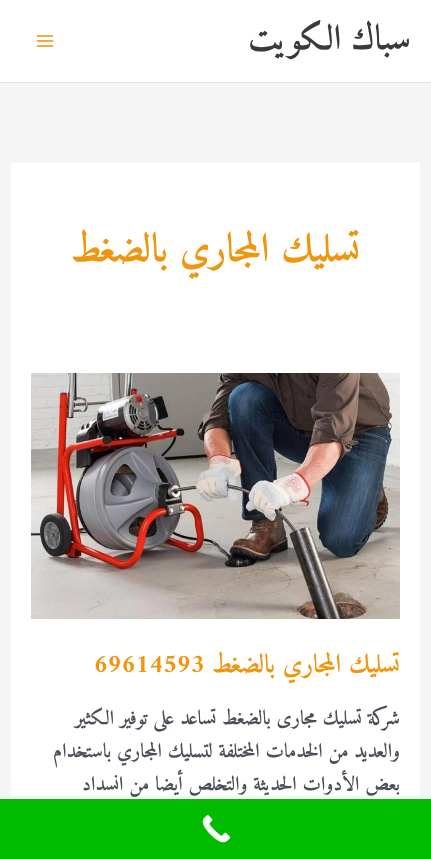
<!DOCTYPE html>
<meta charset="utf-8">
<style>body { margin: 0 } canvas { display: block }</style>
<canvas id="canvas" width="431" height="859"></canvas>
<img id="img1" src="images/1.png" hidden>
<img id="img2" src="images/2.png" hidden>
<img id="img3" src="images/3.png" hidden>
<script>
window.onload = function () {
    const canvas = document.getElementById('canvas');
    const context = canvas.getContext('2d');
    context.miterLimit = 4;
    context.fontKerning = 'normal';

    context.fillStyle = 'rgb(245, 245, 245)';
    context.fillRect(0, 0, 431, 859);
    context.fillStyle = 'rgb(255, 255, 255)';
    context.fillRect(0, 0, 431, 82);
    context.fillStyle = 'rgb(229, 229, 229)';
    context.fillRect(0, 82, 431, 1);
    context.drawImage(document.getElementById('img1'), 36, 35, 18, 12);
    context.fillStyle = 'rgb(255, 255, 255)';
    context.fillRect(11, 163, 409, 636);
    context.drawImage(document.getElementById('img2'), 31, 373, 369, 246);
    context.fillStyle = 'rgb(0, 187, 0)';
    context.fillRect(0, 799, 431, 60);
    context.drawImage(document.getElementById('img3'), 202, 815, 29, 28);
    context.direction = 'rtl';
    context.font = 'bold 35px Amiri';
    context.fillStyle = 'rgb(58, 58, 58)';
    context.fillText('سباك الكويت', 411, 49);
    context.font = 'bold 40px Amiri';
    context.fillStyle = 'rgb(240, 149, 14)';
    context.fillText('تسليك المجاري بالضغط', 360, 261);
    context.font = 'bold 26px Amiri';
    context.fillText('تسليك المجاري بالضغط', 400, 672);
    context.direction = 'ltr';
    context.fillText('69614593', 94, 672);
    context.direction = 'rtl';
    context.font = 'bold 20px Amiri';
    context.fillStyle = 'rgb(75, 79, 88)';
    context.fillText('شركة تسليك مجارى بالضغط تساعد على توفير الكثير', 400, 724);
    context.fillText('والعديد من الخدمات المختلفة لتسليك المجاري باستخدام', 400, 757);
    context.fillText('بعض الأدوات الحديثة والتخلص أيضا من انسداد', 400, 790);
};
</script>
